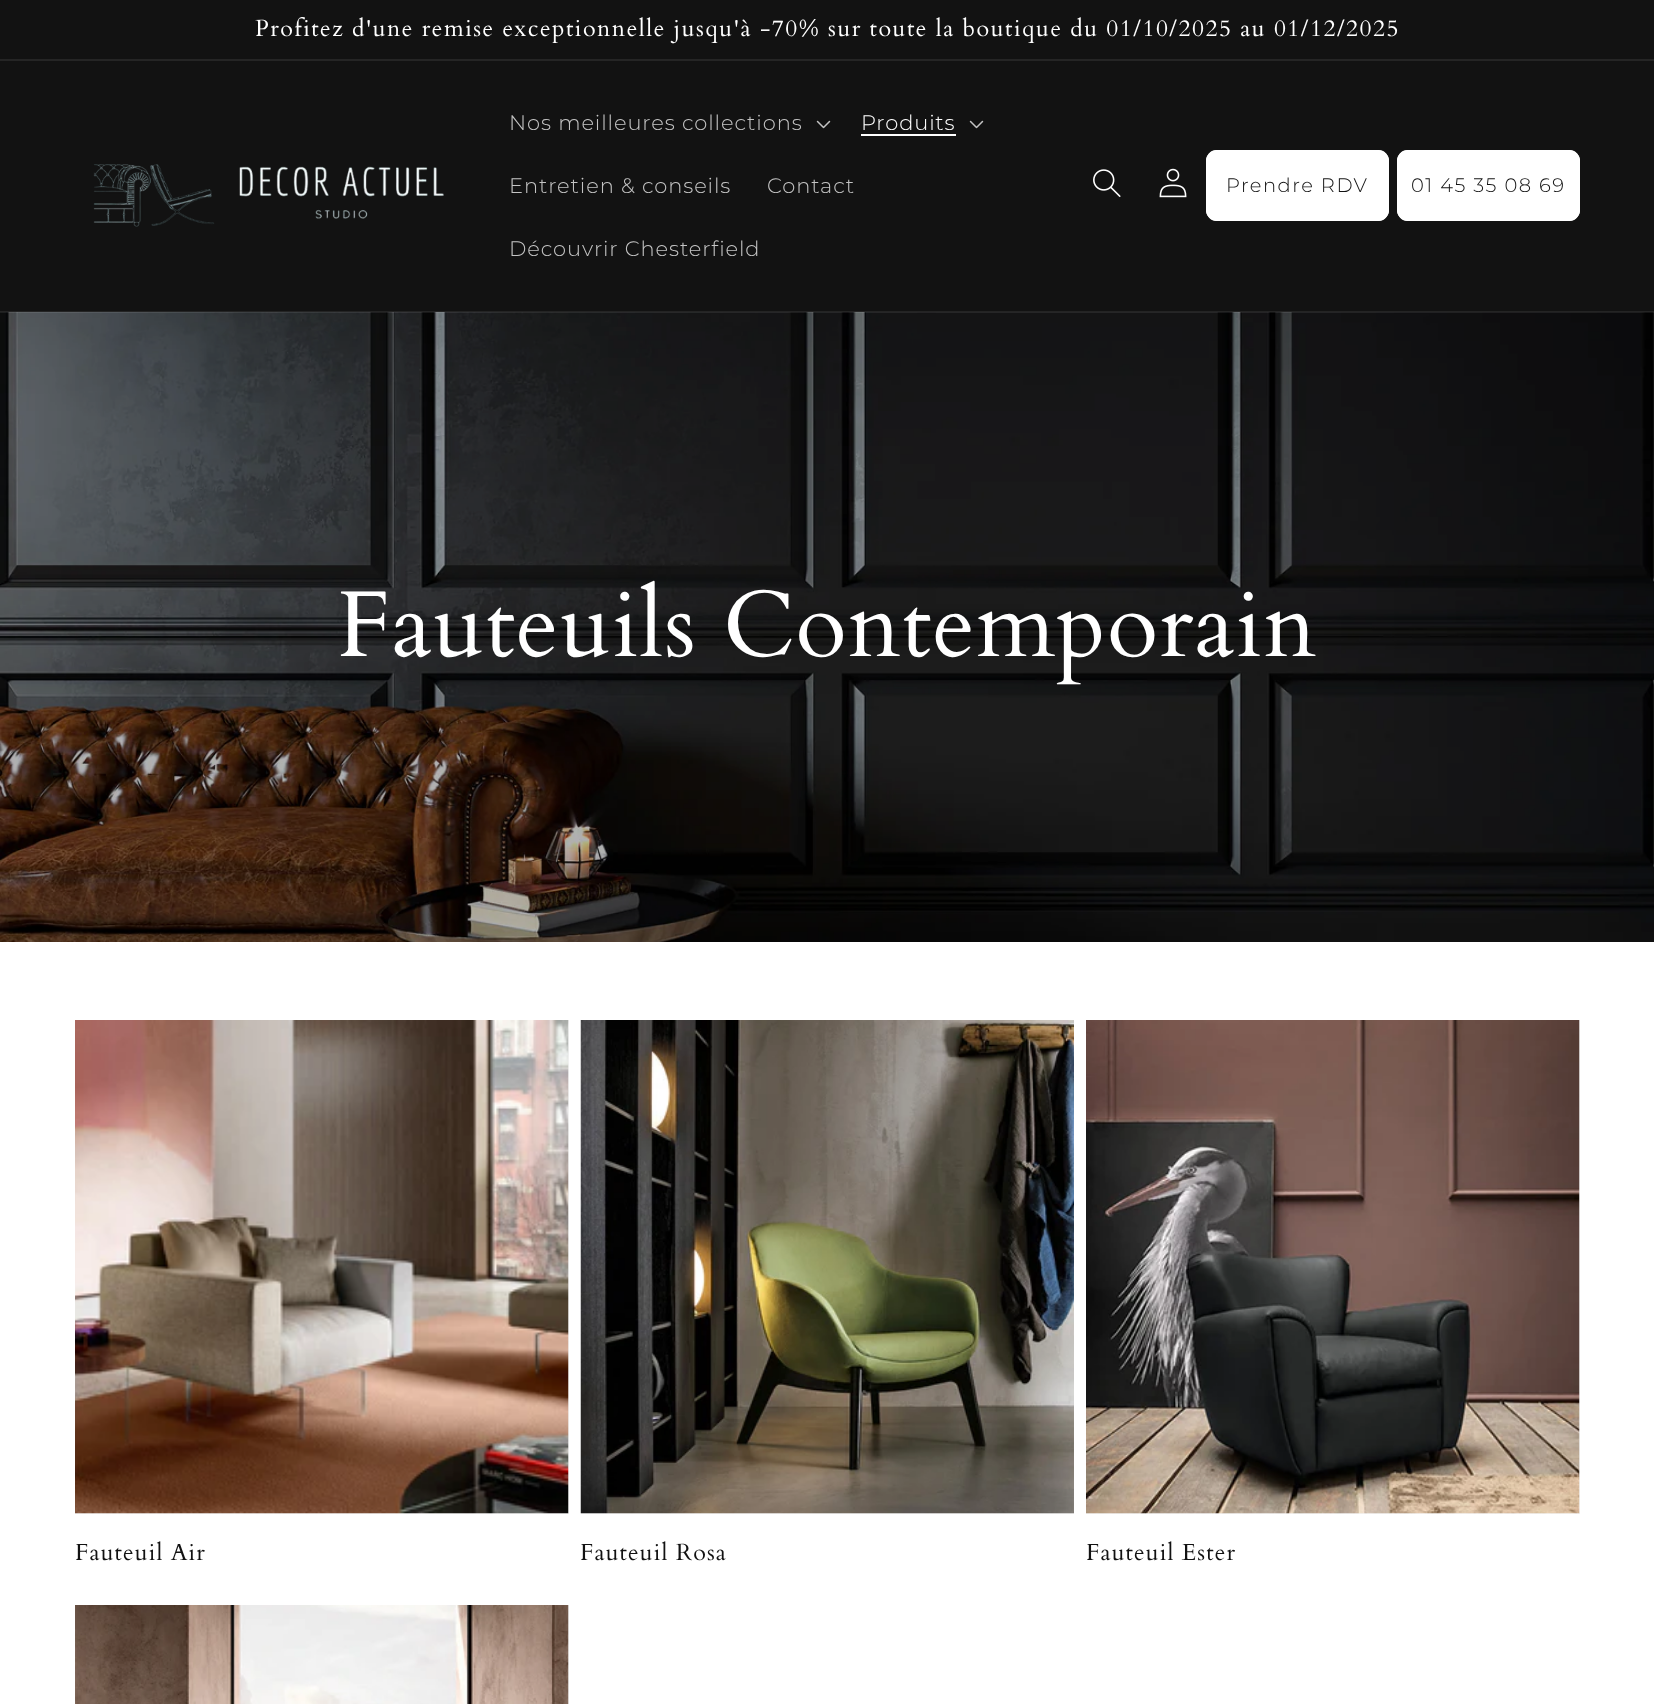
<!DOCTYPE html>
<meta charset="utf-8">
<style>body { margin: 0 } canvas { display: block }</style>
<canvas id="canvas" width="1654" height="1704"></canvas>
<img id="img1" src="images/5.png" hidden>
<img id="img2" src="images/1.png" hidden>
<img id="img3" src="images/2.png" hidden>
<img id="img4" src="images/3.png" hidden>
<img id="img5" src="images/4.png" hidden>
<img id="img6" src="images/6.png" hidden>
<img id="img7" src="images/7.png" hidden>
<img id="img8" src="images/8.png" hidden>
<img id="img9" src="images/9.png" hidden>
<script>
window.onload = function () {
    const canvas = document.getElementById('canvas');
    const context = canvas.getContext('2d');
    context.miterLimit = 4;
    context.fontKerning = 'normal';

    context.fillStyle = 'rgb(255, 255, 255)';
    context.fillRect(0, 0, 1654, 1704);
    context.fillStyle = 'rgb(18, 18, 18)';
    context.fillRect(0, 0, 1654, 59);
    context.fillStyle = 'rgb(37, 37, 37)';
    context.fillRect(0, 59, 1654, 2);
    context.fillStyle = 'rgb(18, 18, 18)';
    context.fillRect(0, 61, 1654, 251);
    context.drawImage(document.getElementById('img1'), 0, 312, 1654, 630);
    context.fillStyle = 'rgba(255, 255, 255, 0.08)';
    context.fillRect(0, 311, 1654, 2);
    context.drawImage(document.getElementById('img2'), 93, 164, 351, 63);
    context.drawImage(document.getElementById('img3'), 816, 120, 15, 9);
    context.fillStyle = 'rgb(255, 255, 255)';
    context.fillRect(861, 134, 95, 2);
    context.drawImage(document.getElementById('img3'), 969, 120, 15, 9);
    context.drawImage(document.getElementById('img4'), 1093, 169, 28, 28);
    context.drawImage(document.getElementById('img5'), 1159, 168, 28, 30);
    context.beginPath();
    context.roundRect(1206, 150, 183, 71, 11);
    context.fill();
    context.beginPath();
    context.roundRect(1207, 151, 181, 69, 10);
    context.strokeStyle = 'rgb(255, 255, 255)';
    context.lineWidth = 2;
    context.stroke();
    context.beginPath();
    context.roundRect(1397, 150, 183, 71, 11);
    context.fill();
    context.beginPath();
    context.roundRect(1398, 151, 181, 69, 10);
    context.stroke();
    context.fillStyle = 'rgb(243, 243, 243)';
    context.fillRect(75, 1020, 494, 494);
    context.drawImage(document.getElementById('img6'), 75, 1020, 494, 494);
    context.fillRect(581, 1513, 493, 1);
    context.drawImage(document.getElementById('img7'), 580, 1020, 494, 494);
    context.fillRect(1086, 1020, 494, 494);
    context.drawImage(document.getElementById('img8'), 1086, 1020, 494, 494);
    context.fillRect(568, 1605, 1, 99);
    context.drawImage(document.getElementById('img9'), 75, 1605, 494, 99);
    context.letterSpacing = '1.5px';
    context.font = '23.4px Cardo';
    context.fillStyle = 'rgb(255, 255, 255)';
    context.fillText('Profitez d\'une remise exceptionnelle jusqu\'à -70% sur toute la boutique du 01/10/2025 au 01/12/2025', 255, 36);
    context.letterSpacing = '0.9px';
    context.font = '300 21px Montserrat';
    context.fillStyle = 'rgb(196, 196, 196)';
    context.fillText('Nos meilleures collections', 509, 130);
    context.fillStyle = 'rgb(255, 255, 255)';
    context.fillText('Produits', 861, 130);
    context.fillStyle = 'rgb(196, 196, 196)';
    context.fillText('Entretien & conseils', 509, 193);
    context.fillText('Contact', 767, 193);
    context.fillText('Découvrir Chesterfield', 509, 256);
    context.letterSpacing = '1.5px';
    context.font = '300 19.5px Montserrat';
    context.fillStyle = 'rgb(18, 18, 18)';
    context.fillText('Prendre RDV', 1226, 192);
    context.fillText('01 45 35 08 69', 1411, 192);
    context.letterSpacing = '1.1px';
    context.font = '93.6px Cardo';
    context.fillStyle = 'rgb(255, 255, 255)';
    context.fillText('Fauteuils Contemporain', 337, 656);
    context.font = '23.4px Cardo';
    context.fillStyle = 'rgb(18, 18, 18)';
    context.fillText('Fauteuil Air', 75, 1560);
    context.fillText('Fauteuil Rosa', 580, 1560);
    context.fillText('Fauteuil Ester', 1086, 1560);
};
</script>
